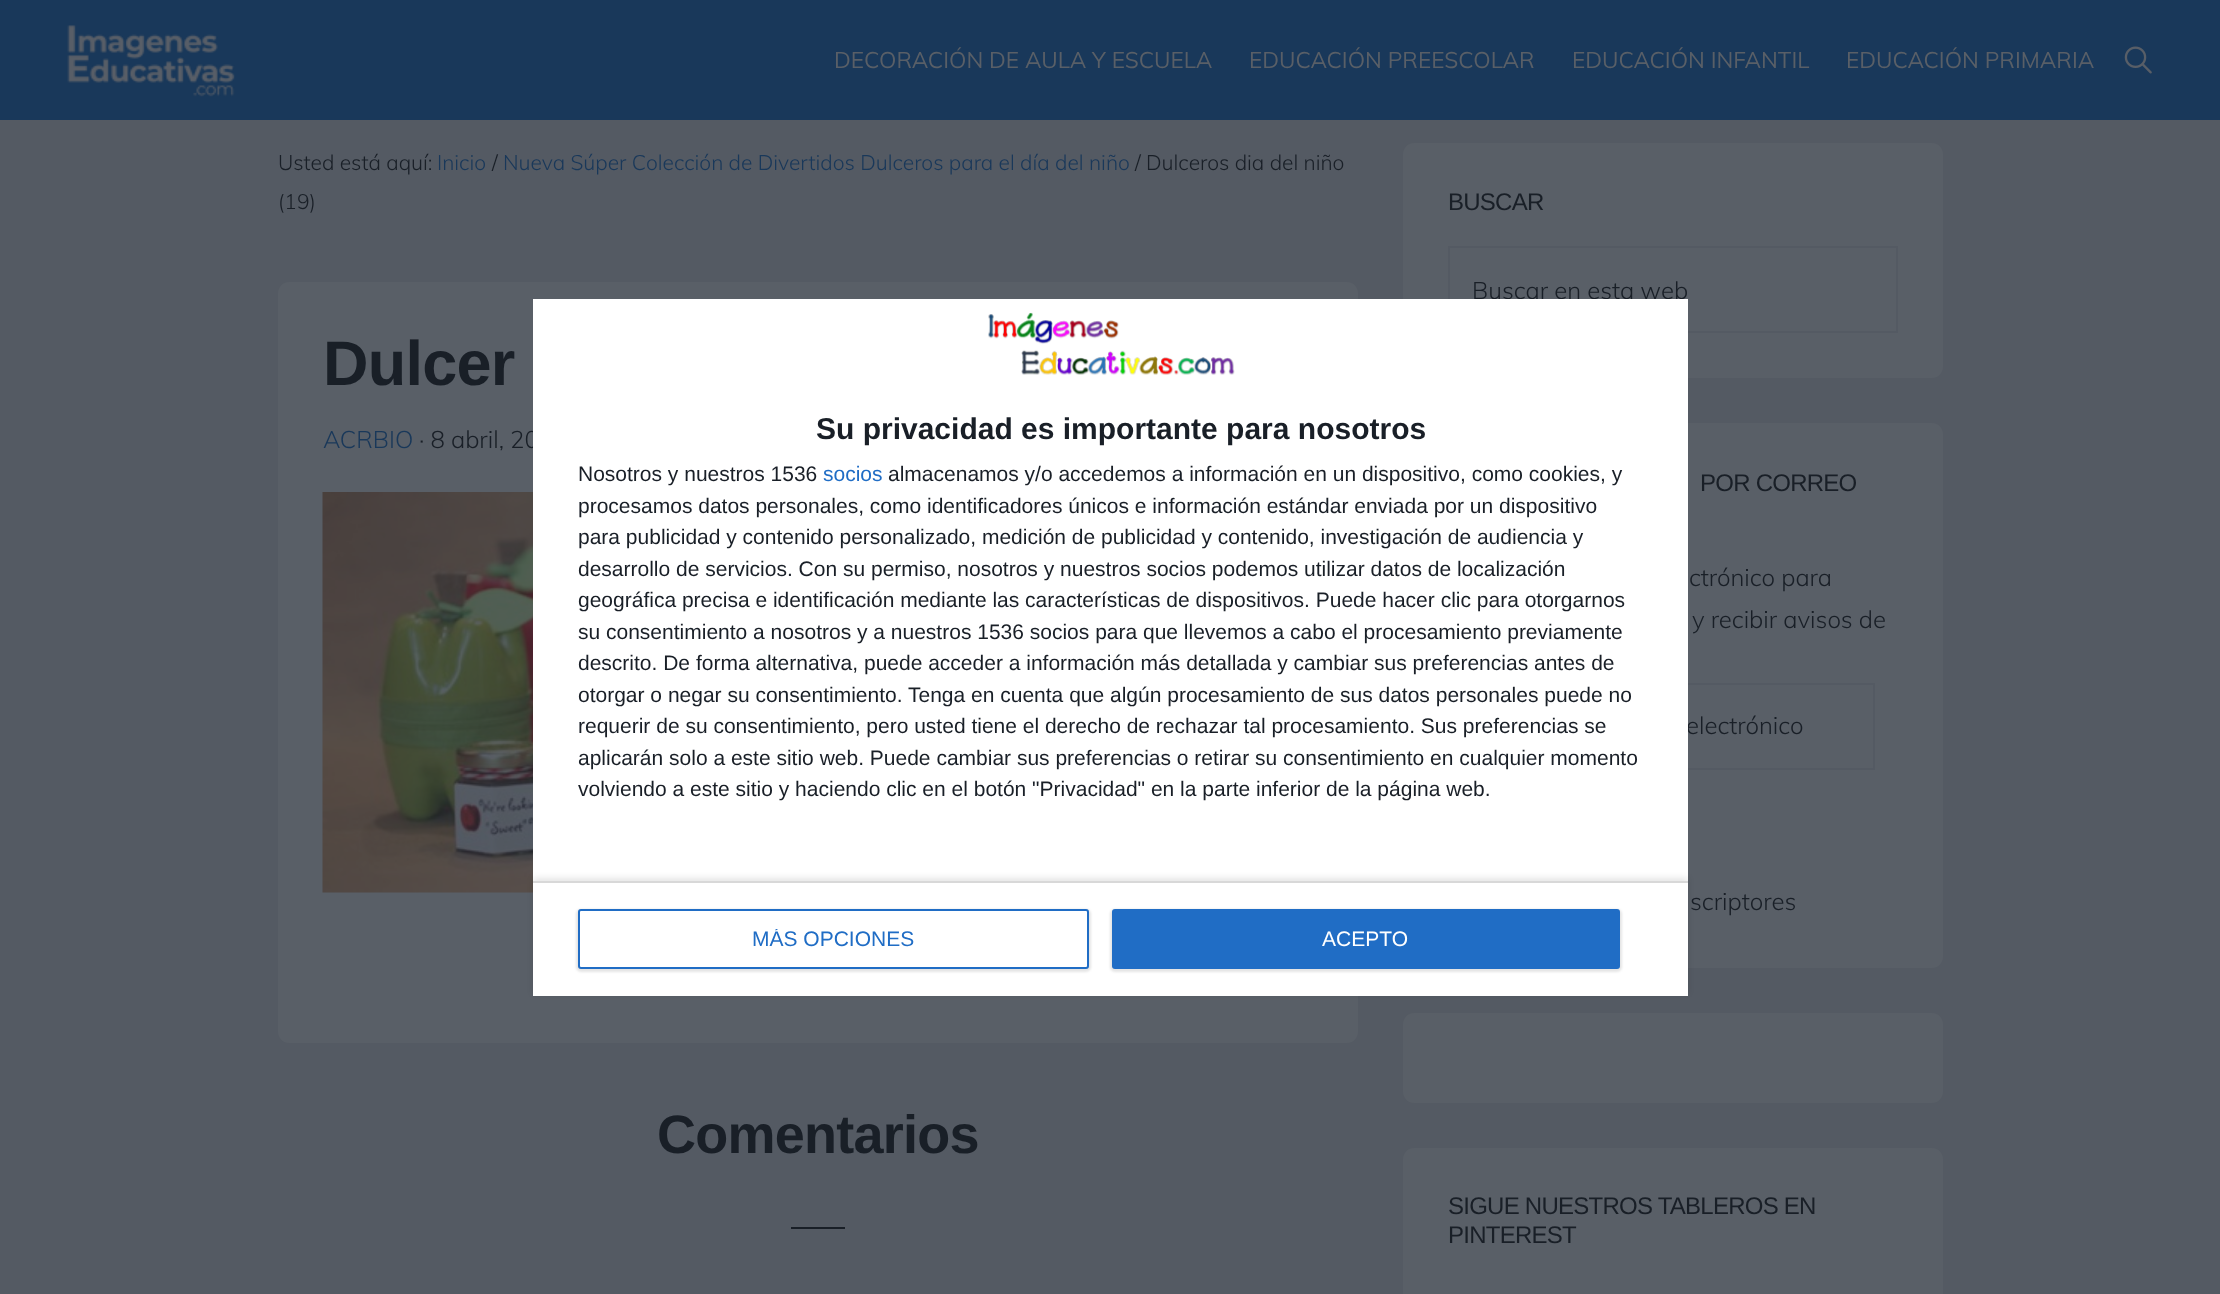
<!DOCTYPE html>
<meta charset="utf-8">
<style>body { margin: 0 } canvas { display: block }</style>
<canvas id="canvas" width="2220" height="1294"></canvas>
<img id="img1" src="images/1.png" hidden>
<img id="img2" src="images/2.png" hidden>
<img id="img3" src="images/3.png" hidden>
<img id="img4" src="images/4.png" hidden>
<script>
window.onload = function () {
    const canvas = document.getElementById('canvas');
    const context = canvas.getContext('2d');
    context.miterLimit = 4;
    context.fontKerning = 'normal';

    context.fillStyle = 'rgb(84, 90, 99)';
    context.fillRect(0, 0, 2220, 1294);
    context.fillStyle = 'rgb(25, 56, 90)';
    context.fillRect(0, 0, 2220, 120);
    context.drawImage(document.getElementById('img1'), 67, 25, 168, 72);
    context.drawImage(document.getElementById('img2'), 2124, 46, 28, 28);
    context.fillStyle = 'rgb(89, 95, 103)';
    context.beginPath();
    context.roundRect(278, 282, 1080, 761, 11);
    context.fill();
    context.drawImage(document.getElementById('img3'), 322, 492, 211, 401);
    context.fillStyle = 'rgb(25, 31, 39)';
    context.fillRect(791, 1227, 54, 2);
    context.fillStyle = 'rgb(89, 95, 103)';
    context.beginPath();
    context.roundRect(1403, 143, 540, 235, 11);
    context.fill();
    context.strokeStyle = 'rgb(84, 90, 99)';
    context.lineWidth = 2;
    context.strokeRect(1449, 247, 448, 85);
    context.beginPath();
    context.roundRect(1403, 423, 540, 545, 11);
    context.fill();
    context.strokeRect(1449, 684, 425, 85);
    context.beginPath();
    context.roundRect(1403, 1013, 540, 90, 11);
    context.fill();
    context.beginPath();
    context.roundRect(1403, 1148, 540, 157, 11);
    context.fill();
    context.font = '22.5px Muli';
    context.fillText('DECORACIÓN DE AULA Y ESCUELA', 834, 68);
    context.fillText('EDUCACIÓN PREESCOLAR', 1249, 68);
    context.fillText('EDUCACIÓN INFANTIL', 1572, 68);
    context.fillText('EDUCACIÓN PRIMARIA', 1846, 68);
    context.font = '300 21px Muli';
    context.fillStyle = 'rgb(25, 31, 39)';
    context.fillText('Usted está aquí:', 278, 170);
    context.fillStyle = 'rgb(25, 56, 90)';
    context.fillText('Inicio', 437, 170);
    context.fillStyle = 'rgb(25, 31, 39)';
    context.fillText('/', 492, 170);
    context.fillStyle = 'rgb(25, 56, 90)';
    context.fillText('Nueva Súper Colección de Divertidos Dulceros para el día del niño', 503, 170);
    context.fillStyle = 'rgb(25, 31, 39)';
    context.fillText('/ Dulceros dia del niño', 1135, 170);
    context.fillText('(19)', 278, 209);
    context.letterSpacing = '-0.75px';
    context.font = 'bold 63px Liberation Sans';
    context.fillText('Dulcer', 323, 385);
    context.letterSpacing = '0px';
    context.font = '300 24px Muli';
    context.fillStyle = 'rgb(25, 56, 90)';
    context.fillText('ACRBIO', 323, 448);
    context.fillStyle = 'rgb(25, 31, 39)';
    context.fillText('· 8 abril, 20', 419, 448);
    context.letterSpacing = '-0.75px';
    context.font = 'bold 54px Liberation Sans';
    context.fillText('Comentarios', 657, 1153);
    context.font = '24px Liberation Sans';
    context.fillText('BUSCAR', 1448, 210);
    context.letterSpacing = '0px';
    context.font = '300 24px Muli';
    context.fillText('Buscar en esta web', 1472, 299);
    context.letterSpacing = '-0.75px';
    context.font = '24px Liberation Sans';
    context.fillText('POR CORREO', 1700, 491);
    context.letterSpacing = '0px';
    context.font = '300 24px Muli';
    context.fillText('ctrónico para', 1689, 586);
    context.fillText('y recibir avisos de', 1692, 628);
    context.fillText('electrónico', 1686, 734);
    context.fillText('scriptores', 1690, 910);
    context.letterSpacing = '-0.75px';
    context.font = '24px Liberation Sans';
    context.fillText('SIGUE NUESTROS TABLEROS EN', 1448, 1214);
    context.fillText('PINTEREST', 1448, 1243);
    context.fillStyle = 'rgb(255, 255, 255)';
    context.fillRect(533, 299, 1155, 697);
    context.drawImage(document.getElementById('img4'), 988, 312, 247, 63);
    context.letterSpacing = '0px';
    context.font = 'bold 30px Liberation Sans';
    context.fillStyle = 'rgb(25, 31, 39)';
    context.fillText('Su privacidad es importante para nosotros', 816, 439);
    context.font = '21px Liberation Sans';
    context.fillText('Nosotros y nuestros 1536', 578, 481);
    context.fillStyle = 'rgb(32, 109, 197)';
    context.fillText('socios', 823, 481);
    context.fillStyle = 'rgb(25, 31, 39)';
    context.fillText('almacenamos y/o accedemos a información en un dispositivo, como cookies, y', 888, 481);
    context.fillText('procesamos datos personales, como identificadores únicos e información estándar enviada por un dispositivo', 578, 513);
    context.fillText('para publicidad y contenido personalizado, medición de publicidad y contenido, investigación de audiencia y', 578, 544);
    context.fillText('desarrollo de servicios. Con su permiso, nosotros y nuestros socios podemos utilizar datos de localización', 578, 576);
    context.fillText('geográfica precisa e identificación mediante las características de dispositivos. Puede hacer clic para otorgarnos', 578, 607);
    context.fillText('su consentimiento a nosotros y a nuestros 1536 socios para que llevemos a cabo el procesamiento previamente', 578, 639);
    context.fillText('descrito. De forma alternativa, puede acceder a información más detallada y cambiar sus preferencias antes de', 578, 670);
    context.fillText('otorgar o negar su consentimiento.', 578, 702);
    context.fillText('Tenga en cuenta que algún procesamiento de sus datos personales puede no', 908, 702);
    context.fillText('requerir de su consentimiento, pero usted tiene el derecho de rechazar tal procesamiento. Sus preferencias se', 578, 733);
    context.fillText('aplicarán solo a este sitio web. Puede cambiar sus preferencias o retirar su consentimiento en cualquier momento', 578, 765);
    context.fillText('volviendo a este sitio y haciendo clic en el botón "Privacidad" en la parte inferior de la página web.', 578, 796);
    context.save();
    context.beginPath();
    context.moveTo(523, 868);
    context.lineTo(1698, 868);
    context.lineTo(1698, 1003);
    context.lineTo(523, 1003);
    context.closePath();
    context.moveTo(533, 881);
    context.lineTo(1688, 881);
    context.lineTo(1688, 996);
    context.lineTo(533, 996);
    context.closePath();
    context.clip('evenodd');
    context.fillStyle = 'rgba(0, 0, 0, 0.1)';
    context.filter = 'blur(3px)';
    context.beginPath();
    context.rect(533, 878, 1155, 115);
    context.fill();
    context.filter = 'none';
    context.restore();
    context.fillStyle = 'rgb(216, 216, 216)';
    context.fillRect(533, 881, 1155, 2);
    context.fillStyle = 'rgba(0, 0, 0, 0.1)';
    context.filter = 'blur(1px)';
    context.beginPath();
    context.roundRect(576, 909, 515, 63, 5);
    context.fill();
    context.filter = 'none';
    context.fillStyle = 'rgb(255, 255, 255)';
    context.beginPath();
    context.roundRect(579, 910, 509, 58, 2);
    context.fill();
    context.strokeStyle = 'rgb(32, 109, 197)';
    context.stroke();
    context.save();
    context.beginPath();
    context.rect(752, 929, 162, 21);
    context.clip();
    context.fillStyle = 'rgb(32, 109, 197)';
    context.fillText('MÁS OPCIONES', 752, 946);
    context.restore();
    context.fillStyle = 'rgba(0, 0, 0, 0.1)';
    context.filter = 'blur(1px)';
    context.beginPath();
    context.roundRect(1110, 909, 512, 63, 5);
    context.fill();
    context.filter = 'none';
    context.fillStyle = 'rgb(32, 109, 197)';
    context.beginPath();
    context.roundRect(1112, 909, 508, 60, 3);
    context.fill();
    context.fillStyle = 'rgb(255, 255, 255)';
    context.fillText('ACEPTO', 1322, 946);
};
</script>
